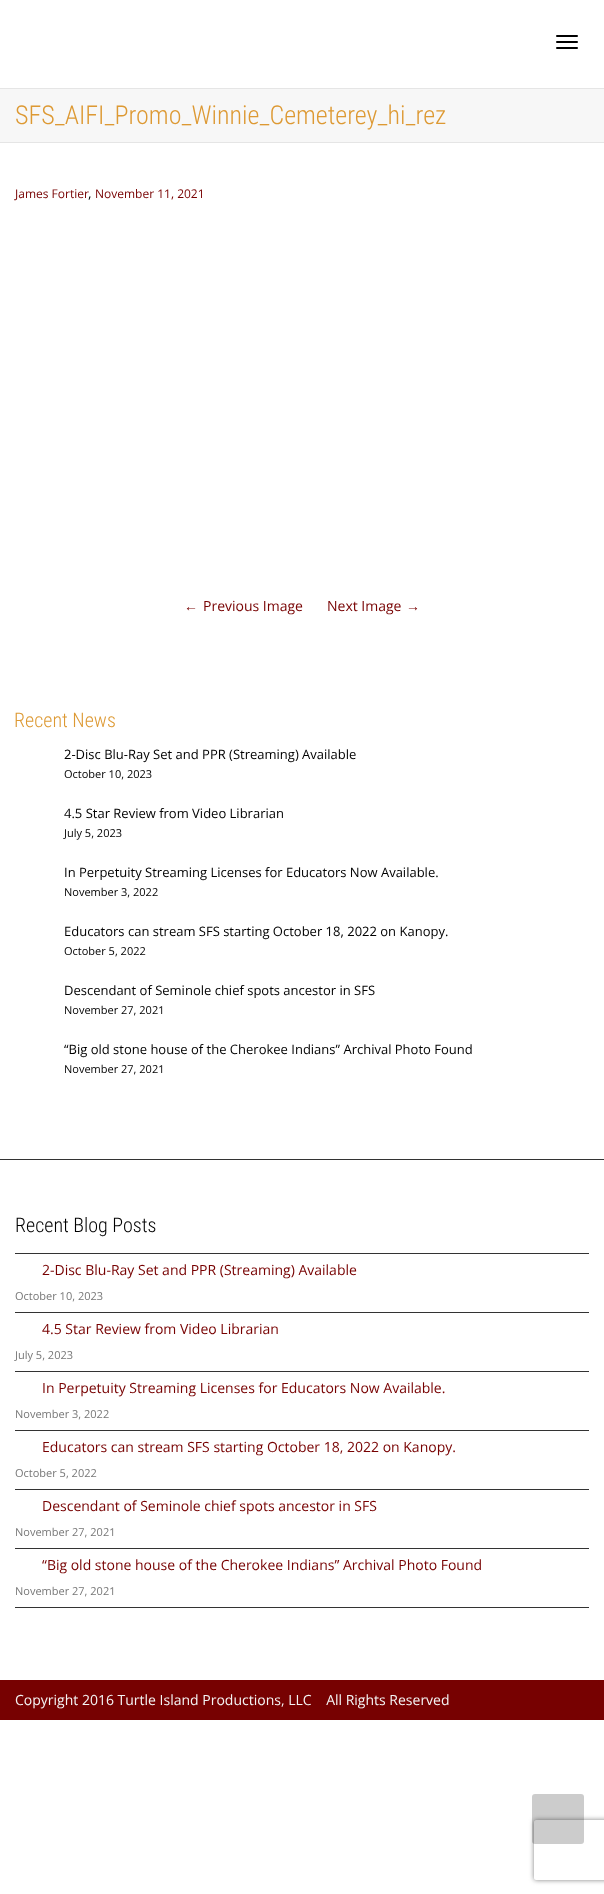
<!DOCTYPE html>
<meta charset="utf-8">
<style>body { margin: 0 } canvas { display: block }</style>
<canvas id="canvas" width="604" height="1894"></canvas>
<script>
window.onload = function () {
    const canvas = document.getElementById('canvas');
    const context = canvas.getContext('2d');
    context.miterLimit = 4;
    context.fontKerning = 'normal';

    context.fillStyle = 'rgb(255, 255, 255)';
    context.fillRect(0, 0, 604, 1894);
    context.fillStyle = 'rgb(229, 229, 229)';
    context.fillRect(0, 88, 604, 1);
    context.fillStyle = 'rgb(0, 0, 0)';
    context.beginPath();
    context.roundRect(556, 35, 22, 2, 1);
    context.fill();
    context.beginPath();
    context.roundRect(556, 41, 22, 2, 1);
    context.fill();
    context.beginPath();
    context.roundRect(556, 47, 22, 2, 1);
    context.fill();
    context.fillStyle = 'rgb(247, 247, 247)';
    context.fillRect(0, 89, 604, 53);
    context.fillStyle = 'rgb(229, 229, 229)';
    context.fillRect(0, 142, 604, 1);
    context.fillStyle = 'rgb(51, 51, 51)';
    context.fillRect(0, 1159, 604, 1);
    context.fillRect(15, 1253, 574, 1);
    context.fillRect(15, 1312, 574, 1);
    context.fillRect(15, 1371, 574, 1);
    context.fillRect(15, 1430, 574, 1);
    context.fillRect(15, 1489, 574, 1);
    context.fillRect(15, 1548, 574, 1);
    context.fillRect(15, 1607, 574, 1);
    context.fillStyle = 'rgb(119, 1, 1)';
    context.fillRect(0, 1680, 604, 40);
    context.save();
    context.beginPath();
    context.moveTo(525, 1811);
    context.lineTo(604, 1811);
    context.lineTo(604, 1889);
    context.lineTo(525, 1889);
    context.closePath();
    context.moveTo(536, 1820);
    context.lineTo(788, 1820);
    context.bezierCurveTo(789, 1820, 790, 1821, 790, 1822);
    context.lineTo(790, 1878);
    context.bezierCurveTo(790, 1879, 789, 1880, 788, 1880);
    context.lineTo(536, 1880);
    context.bezierCurveTo(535, 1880, 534, 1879, 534, 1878);
    context.lineTo(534, 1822);
    context.bezierCurveTo(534, 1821, 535, 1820, 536, 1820);
    context.closePath();
    context.clip('evenodd');
    context.fillStyle = 'rgb(128, 128, 128)';
    context.filter = 'blur(2.5px)';
    context.beginPath();
    context.roundRect(534, 1820, 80, 60, 2);
    context.fill();
    context.filter = 'none';
    context.restore();
    context.fillStyle = 'rgba(0, 0, 0, 0.2)';
    context.beginPath();
    context.roundRect(532, 1794, 52, 50, 3);
    context.fill();
    context.font = '300 26px Roboto Condensed';
    context.fillStyle = 'rgb(221, 153, 51)';
    context.fillText('SFS_AIFI_Promo_Winnie_Cemeterey_hi_rez', 15, 124);
    context.font = '12px Open Sans';
    context.fillStyle = 'rgb(119, 1, 1)';
    context.fillText('James Fortier', 15, 198);
    context.font = '14px Open Sans';
    context.fillStyle = 'rgb(0, 0, 0)';
    context.fillText(',', 88, 198);
    context.font = '12px Open Sans';
    context.fillStyle = 'rgb(119, 1, 1)';
    context.fillText('November 11, 2021', 95, 198);
    context.font = '14px Liberation Serif';
    context.fillText('←', 184, 611);
    context.font = '14px Open Sans';
    context.fillText('Previous Image', 203, 611);
    context.fillText('Next Image', 327, 611);
    context.font = '14px Liberation Serif';
    context.fillText('→', 406, 611);
    context.font = '300 20px Roboto Condensed';
    context.fillStyle = 'rgb(221, 153, 51)';
    context.fillText('Recent News', 14, 727);
    context.font = '13px Open Sans';
    context.fillStyle = 'rgb(0, 0, 0)';
    context.fillText('2-Disc Blu-Ray Set and PPR (Streaming) Available', 64, 759);
    context.font = '11px Open Sans';
    context.fillText('October 10, 2023', 64, 778);
    context.font = '13px Open Sans';
    context.fillText('4.5 Star Review from Video Librarian', 64, 818);
    context.font = '11px Open Sans';
    context.fillText('July 5, 2023', 64, 837);
    context.font = '13px Open Sans';
    context.fillText('In Perpetuity Streaming Licenses for Educators Now Available.', 64, 877);
    context.font = '11px Open Sans';
    context.fillText('November 3, 2022', 64, 896);
    context.font = '13px Open Sans';
    context.fillText('Educators can stream SFS starting October 18, 2022 on Kanopy.', 64, 936);
    context.font = '11px Open Sans';
    context.fillText('October 5, 2022', 64, 955);
    context.font = '13px Open Sans';
    context.fillText('Descendant of Seminole chief spots ancestor in SFS', 64, 995);
    context.font = '11px Open Sans';
    context.fillText('November 27, 2021', 64, 1014);
    context.font = '13px Open Sans';
    context.fillText('“Big old stone house of the Cherokee Indians” Archival Photo Found', 64, 1054);
    context.font = '11px Open Sans';
    context.fillText('November 27, 2021', 64, 1073);
    context.font = '300 20px Roboto Condensed';
    context.fillText('Recent Blog Posts', 15, 1232);
    context.font = '14px Open Sans';
    context.fillStyle = 'rgb(119, 1, 1)';
    context.fillText('2-Disc Blu-Ray Set and PPR (Streaming) Available', 42, 1275);
    context.font = '11px Open Sans';
    context.fillStyle = 'rgb(119, 119, 119)';
    context.fillText('October 10, 2023', 15, 1300);
    context.font = '14px Open Sans';
    context.fillStyle = 'rgb(119, 1, 1)';
    context.fillText('4.5 Star Review from Video Librarian', 42, 1334);
    context.font = '11px Open Sans';
    context.fillStyle = 'rgb(119, 119, 119)';
    context.fillText('July 5, 2023', 15, 1359);
    context.font = '14px Open Sans';
    context.fillStyle = 'rgb(119, 1, 1)';
    context.fillText('In Perpetuity Streaming Licenses for Educators Now Available.', 42, 1393);
    context.font = '11px Open Sans';
    context.fillStyle = 'rgb(119, 119, 119)';
    context.fillText('November 3, 2022', 15, 1418);
    context.font = '14px Open Sans';
    context.fillStyle = 'rgb(119, 1, 1)';
    context.fillText('Educators can stream SFS starting October 18, 2022 on Kanopy.', 42, 1452);
    context.font = '11px Open Sans';
    context.fillStyle = 'rgb(119, 119, 119)';
    context.fillText('October 5, 2022', 15, 1477);
    context.font = '14px Open Sans';
    context.fillStyle = 'rgb(119, 1, 1)';
    context.fillText('Descendant of Seminole chief spots ancestor in SFS', 42, 1511);
    context.font = '11px Open Sans';
    context.fillStyle = 'rgb(119, 119, 119)';
    context.fillText('November 27, 2021', 15, 1536);
    context.font = '14px Open Sans';
    context.fillStyle = 'rgb(119, 1, 1)';
    context.fillText('“Big old stone house of the Cherokee Indians” Archival Photo Found', 42, 1570);
    context.font = '11px Open Sans';
    context.fillStyle = 'rgb(119, 119, 119)';
    context.fillText('November 27, 2021', 15, 1595);
    context.font = '14px Open Sans';
    context.fillStyle = 'rgb(244, 244, 244)';
    context.fillText('Copyright 2016 Turtle Island Productions, LLC    All Rights Reserved', 15, 1705);
};
</script>
